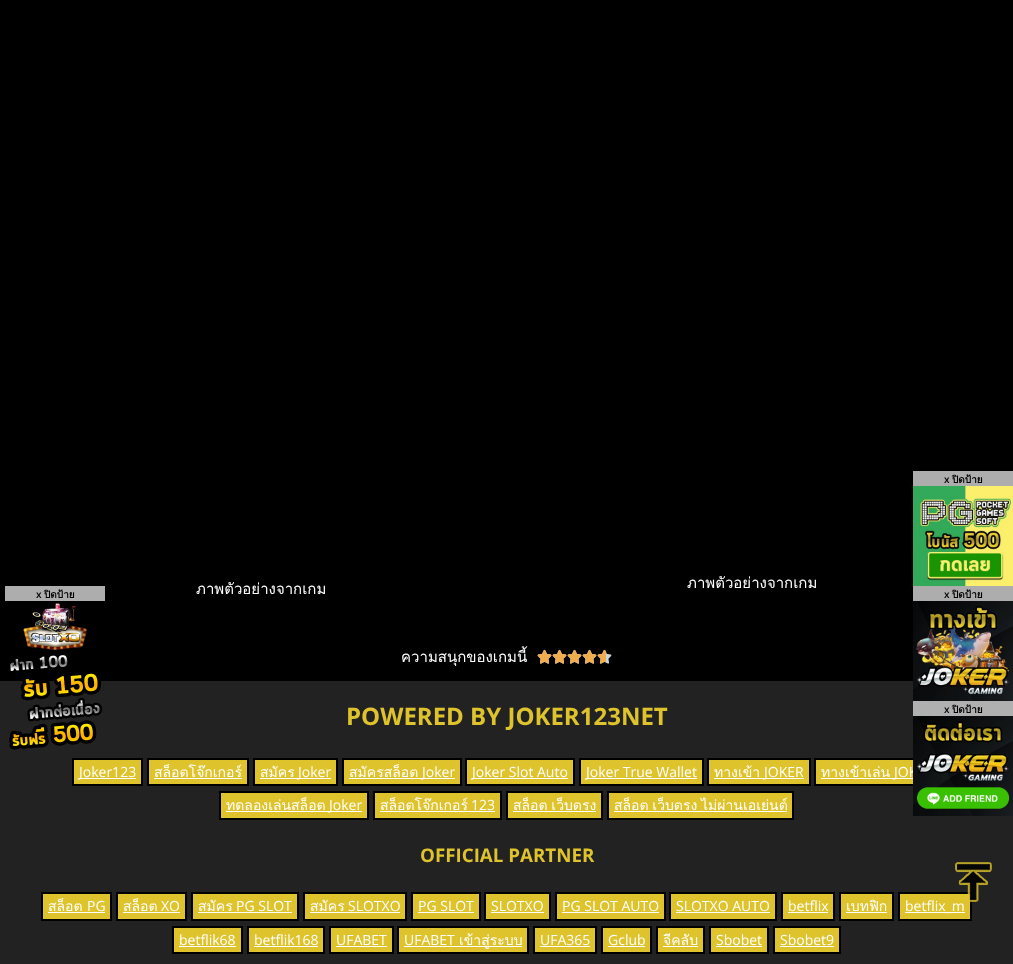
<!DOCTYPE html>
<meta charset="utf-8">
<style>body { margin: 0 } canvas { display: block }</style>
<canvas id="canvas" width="1013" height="964"></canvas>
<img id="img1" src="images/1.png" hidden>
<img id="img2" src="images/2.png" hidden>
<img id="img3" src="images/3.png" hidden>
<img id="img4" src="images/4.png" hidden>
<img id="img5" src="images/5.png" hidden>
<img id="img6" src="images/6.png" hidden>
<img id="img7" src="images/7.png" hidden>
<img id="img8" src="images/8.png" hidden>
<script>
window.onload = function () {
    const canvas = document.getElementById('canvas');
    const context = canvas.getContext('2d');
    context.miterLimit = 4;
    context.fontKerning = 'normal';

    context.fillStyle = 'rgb(0, 0, 0)';
    context.fillRect(0, 0, 1013, 964);
    context.fillStyle = 'rgb(174, 173, 173)';
    context.fillRect(913, 471, 100, 15);
    context.drawImage(document.getElementById('img1'), 913, 486, 100, 100);
    context.fillRect(5, 586, 100, 15);
    context.fillStyle = 'rgb(34, 34, 34)';
    context.fillRect(0, 681, 1013, 283);
    context.drawImage(document.getElementById('img2'), 9, 603, 94, 147);
    context.drawImage(document.getElementById('img3'), 537, 649, 15, 15);
    context.drawImage(document.getElementById('img4'), 537, 649, 15, 15);
    context.drawImage(document.getElementById('img3'), 552, 649, 15, 15);
    context.drawImage(document.getElementById('img4'), 552, 649, 15, 15);
    context.drawImage(document.getElementById('img3'), 567, 649, 15, 15);
    context.drawImage(document.getElementById('img4'), 567, 649, 15, 15);
    context.drawImage(document.getElementById('img3'), 582, 649, 15, 15);
    context.drawImage(document.getElementById('img4'), 582, 649, 15, 15);
    context.drawImage(document.getElementById('img3'), 597, 649, 15, 15);
    context.drawImage(document.getElementById('img5'), 597, 649, 9, 15);
    context.fillStyle = 'rgb(174, 173, 173)';
    context.fillRect(913, 586, 100, 15);
    context.drawImage(document.getElementById('img6'), 913, 601, 100, 100);
    context.fillStyle = 'rgb(177, 176, 176)';
    context.fillRect(913, 701, 100, 15);
    context.fillStyle = 'rgb(222, 195, 44)';
    context.beginPath();
    context.rect(73, 759, 69, 26);
    context.fill();
    context.strokeStyle = 'rgb(0, 0, 0)';
    context.lineWidth = 2;
    context.stroke();
    context.fillStyle = 'rgb(255, 255, 255)';
    context.fillRect(79, 778, 57, 1);
    context.fillStyle = 'rgb(222, 195, 44)';
    context.beginPath();
    context.rect(148, 759, 100, 26);
    context.fill();
    context.stroke();
    context.fillStyle = 'rgb(255, 255, 255)';
    context.fillRect(154, 778, 88, 1);
    context.fillStyle = 'rgb(222, 195, 44)';
    context.beginPath();
    context.rect(254, 759, 83, 26);
    context.fill();
    context.stroke();
    context.fillStyle = 'rgb(255, 255, 255)';
    context.fillRect(260, 778, 71, 1);
    context.fillStyle = 'rgb(222, 195, 44)';
    context.beginPath();
    context.rect(343, 759, 118, 26);
    context.fill();
    context.stroke();
    context.fillStyle = 'rgb(255, 255, 255)';
    context.fillRect(349, 778, 106, 1);
    context.fillStyle = 'rgb(222, 195, 44)';
    context.beginPath();
    context.rect(466, 759, 108, 26);
    context.fill();
    context.stroke();
    context.fillStyle = 'rgb(255, 255, 255)';
    context.fillRect(472, 778, 96, 1);
    context.fillStyle = 'rgb(222, 195, 44)';
    context.beginPath();
    context.rect(580, 759, 123, 26);
    context.fill();
    context.stroke();
    context.fillStyle = 'rgb(255, 255, 255)';
    context.fillRect(586, 778, 111, 1);
    context.fillStyle = 'rgb(222, 195, 44)';
    context.beginPath();
    context.rect(708, 759, 102, 26);
    context.fill();
    context.stroke();
    context.fillStyle = 'rgb(255, 255, 255)';
    context.fillRect(714, 778, 90, 1);
    context.fillStyle = 'rgb(222, 195, 44)';
    context.fillRect(816, 760, 97, 24);
    context.strokeRect(815, 759, 125, 26);
    context.fillStyle = 'rgb(255, 255, 255)';
    context.fillRect(821, 778, 92, 1);
    context.fillStyle = 'rgb(222, 195, 44)';
    context.beginPath();
    context.rect(220, 792, 148, 27);
    context.fill();
    context.stroke();
    context.fillStyle = 'rgb(255, 255, 255)';
    context.fillRect(226, 811, 136, 1);
    context.fillStyle = 'rgb(222, 195, 44)';
    context.beginPath();
    context.rect(374, 792, 127, 27);
    context.fill();
    context.stroke();
    context.fillStyle = 'rgb(255, 255, 255)';
    context.fillRect(380, 811, 115, 1);
    context.fillStyle = 'rgb(222, 195, 44)';
    context.beginPath();
    context.rect(507, 792, 95, 27);
    context.fill();
    context.stroke();
    context.fillStyle = 'rgb(255, 255, 255)';
    context.fillRect(513, 811, 83, 1);
    context.fillStyle = 'rgb(222, 195, 44)';
    context.beginPath();
    context.rect(608, 792, 185, 27);
    context.fill();
    context.stroke();
    context.fillStyle = 'rgb(255, 255, 255)';
    context.fillRect(614, 811, 173, 1);
    context.fillStyle = 'rgb(222, 195, 44)';
    context.beginPath();
    context.rect(42, 893, 69, 27);
    context.fill();
    context.stroke();
    context.fillStyle = 'rgb(255, 255, 255)';
    context.fillRect(48, 912, 57, 1);
    context.fillStyle = 'rgb(222, 195, 44)';
    context.beginPath();
    context.rect(117, 893, 69, 27);
    context.fill();
    context.stroke();
    context.fillStyle = 'rgb(255, 255, 255)';
    context.fillRect(123, 912, 57, 1);
    context.fillStyle = 'rgb(222, 195, 44)';
    context.beginPath();
    context.rect(192, 893, 106, 27);
    context.fill();
    context.stroke();
    context.fillStyle = 'rgb(255, 255, 255)';
    context.fillRect(198, 912, 94, 1);
    context.fillStyle = 'rgb(222, 195, 44)';
    context.beginPath();
    context.rect(304, 893, 102, 27);
    context.fill();
    context.stroke();
    context.fillStyle = 'rgb(255, 255, 255)';
    context.fillRect(310, 912, 90, 1);
    context.fillStyle = 'rgb(222, 195, 44)';
    context.beginPath();
    context.rect(412, 893, 68, 27);
    context.fill();
    context.stroke();
    context.fillStyle = 'rgb(255, 255, 255)';
    context.fillRect(418, 912, 56, 1);
    context.fillStyle = 'rgb(222, 195, 44)';
    context.beginPath();
    context.rect(485, 893, 65, 27);
    context.fill();
    context.stroke();
    context.fillStyle = 'rgb(255, 255, 255)';
    context.fillRect(491, 912, 53, 1);
    context.fillStyle = 'rgb(222, 195, 44)';
    context.beginPath();
    context.rect(556, 893, 109, 27);
    context.fill();
    context.stroke();
    context.fillStyle = 'rgb(255, 255, 255)';
    context.fillRect(562, 912, 97, 1);
    context.fillStyle = 'rgb(222, 195, 44)';
    context.beginPath();
    context.rect(670, 893, 106, 27);
    context.fill();
    context.stroke();
    context.fillStyle = 'rgb(255, 255, 255)';
    context.fillRect(676, 912, 94, 1);
    context.fillStyle = 'rgb(222, 195, 44)';
    context.beginPath();
    context.rect(782, 893, 52, 27);
    context.fill();
    context.stroke();
    context.fillStyle = 'rgb(255, 255, 255)';
    context.fillRect(788, 912, 40, 1);
    context.fillStyle = 'rgb(222, 195, 44)';
    context.beginPath();
    context.rect(840, 893, 53, 27);
    context.fill();
    context.stroke();
    context.fillStyle = 'rgb(255, 255, 255)';
    context.fillRect(846, 912, 41, 1);
    context.fillStyle = 'rgb(222, 195, 44)';
    context.beginPath();
    context.rect(899, 893, 72, 27);
    context.fill();
    context.stroke();
    context.fillStyle = 'rgb(255, 255, 255)';
    context.fillRect(905, 912, 60, 1);
    context.fillStyle = 'rgb(222, 195, 44)';
    context.beginPath();
    context.rect(173, 927, 69, 26);
    context.fill();
    context.stroke();
    context.fillStyle = 'rgb(255, 255, 255)';
    context.fillRect(179, 946, 57, 1);
    context.fillStyle = 'rgb(222, 195, 44)';
    context.beginPath();
    context.rect(248, 927, 76, 26);
    context.fill();
    context.stroke();
    context.fillStyle = 'rgb(255, 255, 255)';
    context.fillRect(254, 946, 64, 1);
    context.fillStyle = 'rgb(222, 195, 44)';
    context.beginPath();
    context.rect(330, 927, 63, 26);
    context.fill();
    context.stroke();
    context.fillStyle = 'rgb(255, 255, 255)';
    context.fillRect(336, 946, 51, 1);
    context.fillStyle = 'rgb(222, 195, 44)';
    context.beginPath();
    context.rect(398, 927, 130, 26);
    context.fill();
    context.stroke();
    context.fillStyle = 'rgb(255, 255, 255)';
    context.fillRect(404, 946, 118, 1);
    context.fillStyle = 'rgb(222, 195, 44)';
    context.beginPath();
    context.rect(534, 927, 62, 26);
    context.fill();
    context.stroke();
    context.fillStyle = 'rgb(255, 255, 255)';
    context.fillRect(540, 946, 50, 1);
    context.fillStyle = 'rgb(222, 195, 44)';
    context.beginPath();
    context.rect(602, 927, 49, 26);
    context.fill();
    context.stroke();
    context.fillStyle = 'rgb(255, 255, 255)';
    context.fillRect(608, 946, 37, 1);
    context.fillStyle = 'rgb(222, 195, 44)';
    context.beginPath();
    context.rect(657, 927, 47, 26);
    context.fill();
    context.stroke();
    context.fillStyle = 'rgb(255, 255, 255)';
    context.fillRect(663, 946, 35, 1);
    context.fillStyle = 'rgb(222, 195, 44)';
    context.beginPath();
    context.rect(710, 927, 58, 26);
    context.fill();
    context.stroke();
    context.fillStyle = 'rgb(255, 255, 255)';
    context.fillRect(716, 946, 46, 1);
    context.fillStyle = 'rgb(222, 195, 44)';
    context.beginPath();
    context.rect(774, 927, 66, 26);
    context.fill();
    context.stroke();
    context.fillStyle = 'rgb(255, 255, 255)';
    context.fillRect(780, 946, 54, 1);
    context.font = '600 10px Open Sans';
    context.fillStyle = 'rgb(0, 0, 0)';
    context.fillText('x', 944, 483);
    context.font = 'bold 10px Loma';
    context.fillText('ปิดป้าย', 952, 483);
    context.font = '600 10px Open Sans';
    context.fillText('x', 36, 598);
    context.font = 'bold 10px Loma';
    context.fillText('ปิดป้าย', 44, 598);
    context.font = '15px Loma';
    context.fillStyle = 'rgb(255, 255, 255)';
    context.fillText('ภาพตัวอย่างจากเกม', 196, 594);
    context.fillText('ภาพตัวอย่างจากเกม', 687, 588);
    context.fillText('ความสนุกของเกมนี้', 401, 662);
    context.font = '600 10px Open Sans';
    context.fillStyle = 'rgb(0, 0, 0)';
    context.fillText('x', 944, 598);
    context.font = 'bold 10px Loma';
    context.fillText('ปิดป้าย', 952, 598);
    context.font = '600 10px Open Sans';
    context.fillText('x', 944, 713);
    context.font = 'bold 10px Loma';
    context.fillText('ปิดป้าย', 952, 713);
    context.font = 'bold 24px Open Sans';
    context.fillStyle = 'rgb(222, 195, 44)';
    context.fillText('POWERED BY JOKER123NET', 346, 725);
    context.font = '14px Open Sans';
    context.fillStyle = 'rgb(255, 255, 255)';
    context.fillText('Joker123', 79, 777);
    context.font = '14px Loma';
    context.fillText('สล็อตโจ๊กเกอร์', 154, 777);
    context.fillText('สมัคร', 260, 777);
    context.font = '14px Open Sans';
    context.fillText('Joker', 298, 777);
    context.font = '14px Loma';
    context.fillText('สมัครสล็อต', 349, 777);
    context.font = '14px Open Sans';
    context.fillText('Joker', 422, 777);
    context.fillText('Joker Slot Auto', 472, 777);
    context.fillText('Joker True Wallet', 586, 777);
    context.font = '14px Loma';
    context.fillText('ทางเข้า', 714, 777);
    context.font = '14px Open Sans';
    context.fillText('JOKER', 764, 777);
    context.font = '14px Loma';
    context.fillText('ทางเข้าเล่น', 821, 777);
    context.font = '14px Open Sans';
    context.fillText('JOK', 894, 777);
    context.drawImage(document.getElementById('img7'), 913, 716, 100, 100);
    context.font = '14px Loma';
    context.fillText('ทดลองเล่นสล็อต', 226, 810);
    context.font = '14px Open Sans';
    context.fillText('Joker', 329, 810);
    context.font = '14px Loma';
    context.fillText('สล็อตโจ๊กเกอร์', 380, 810);
    context.font = '14px Open Sans';
    context.fillText('123', 471, 810);
    context.wordSpacing = '-1px';
    context.font = '14px Loma';
    context.fillText('สล็อต เว็บตรง', 513, 810);
    context.fillText('สล็อต เว็บตรง ไม่ผ่านเอเย่นต์', 614, 810);
    context.wordSpacing = '0px';
    context.font = 'bold 18.75px Open Sans';
    context.fillStyle = 'rgb(222, 195, 44)';
    context.fillText('OFFICIAL PARTNER', 420, 862);
    context.font = '14px Loma';
    context.fillStyle = 'rgb(255, 255, 255)';
    context.fillText('สล็อต', 48, 911);
    context.font = '14px Open Sans';
    context.fillText('PG', 87, 911);
    context.font = '14px Loma';
    context.fillText('สล็อต', 123, 911);
    context.font = '14px Open Sans';
    context.fillText('XO', 161, 911);
    context.font = '14px Loma';
    context.fillText('สมัคร', 198, 911);
    context.font = '14px Open Sans';
    context.fillText('PG SLOT', 236, 911);
    context.font = '14px Loma';
    context.fillText('สมัคร', 310, 911);
    context.font = '14px Open Sans';
    context.fillText('SLOTXO', 348, 911);
    context.fillText('PG SLOT', 418, 911);
    context.fillText('SLOTXO', 491, 911);
    context.fillText('PG SLOT AUTO', 562, 911);
    context.fillText('SLOTXO AUTO', 676, 911);
    context.fillText('betflix', 788, 911);
    context.font = '14px Loma';
    context.fillText('เบทฟิก', 846, 911);
    context.font = '14px Open Sans';
    context.fillText('betflix_m', 905, 911);
    context.fillText('betflik68', 179, 945);
    context.fillText('betflik168', 254, 945);
    context.fillText('UFABET', 336, 945);
    context.fillText('UFABET', 404, 945);
    context.font = '14px Loma';
    context.fillText('เข้าสู่ระบบ', 459, 945);
    context.font = '14px Open Sans';
    context.fillText('UFA365', 540, 945);
    context.fillText('Gclub', 608, 945);
    context.font = '14px Loma';
    context.fillText('จีคลับ', 663, 945);
    context.font = '14px Open Sans';
    context.fillText('Sbobet', 716, 945);
    context.fillText('Sbobet9', 780, 945);
    context.drawImage(document.getElementById('img8'), 955, 862, 37, 40);
};
</script>
